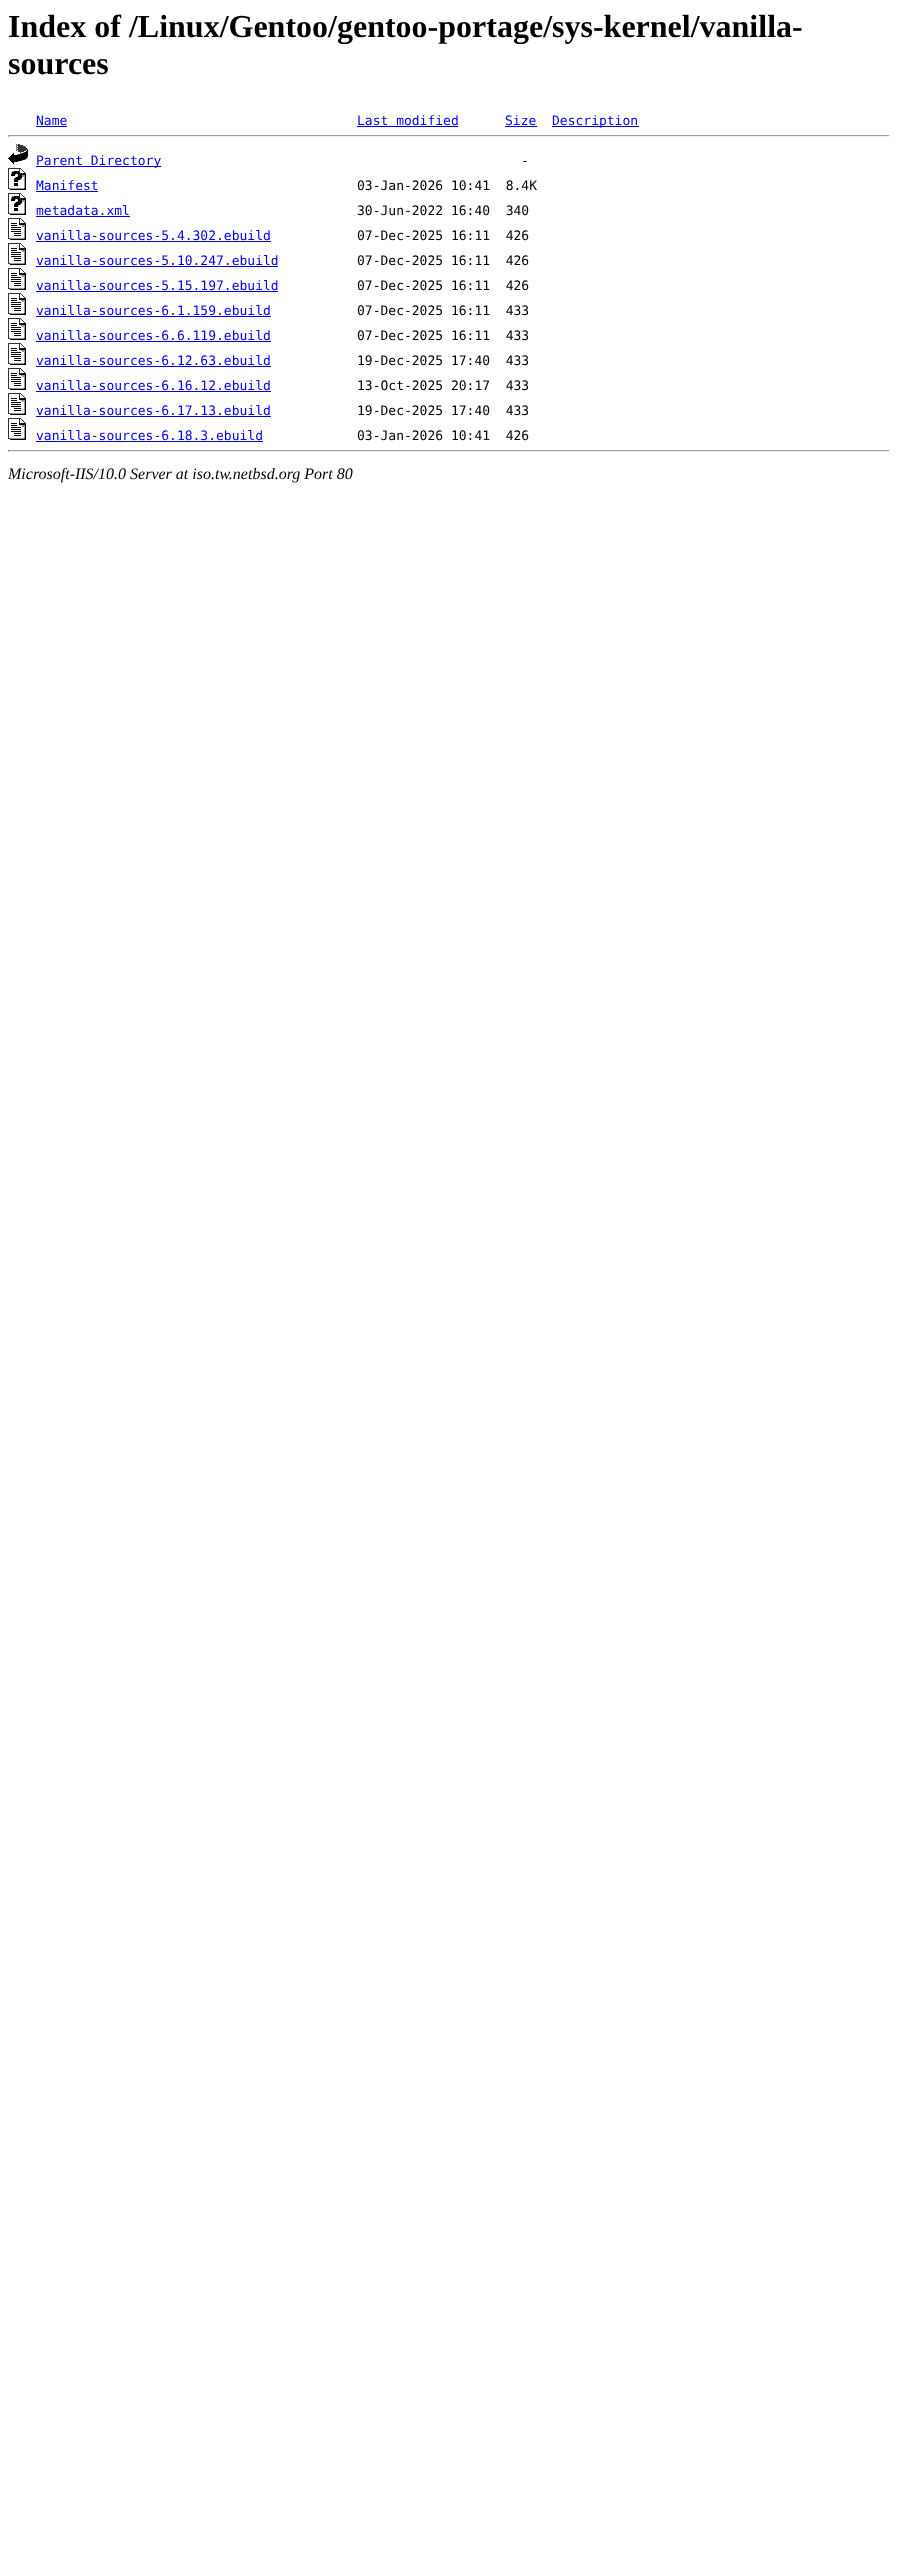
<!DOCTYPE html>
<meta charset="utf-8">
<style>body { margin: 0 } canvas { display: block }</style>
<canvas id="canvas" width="898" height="2567"></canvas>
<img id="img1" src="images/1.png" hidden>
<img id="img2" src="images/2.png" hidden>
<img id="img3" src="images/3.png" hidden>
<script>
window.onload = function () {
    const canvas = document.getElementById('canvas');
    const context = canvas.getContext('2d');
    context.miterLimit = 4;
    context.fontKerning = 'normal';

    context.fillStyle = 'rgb(255, 255, 255)';
    context.fillRect(0, 0, 898, 2567);
    context.fillStyle = 'rgb(0, 0, 238)';
    context.fillRect(36, 126, 31, 1);
    context.fillRect(357, 126, 101, 1);
    context.fillRect(505, 126, 32, 1);
    context.fillRect(552, 126, 87, 1);
    context.fillStyle = 'rgb(159, 159, 159)';
    context.fillRect(8, 135, 882, 1);
    context.fillStyle = 'rgb(238, 238, 238)';
    context.fillRect(889, 135, 1, 2);
    context.fillRect(8, 136, 882, 1);
    context.fillStyle = 'rgb(159, 159, 159)';
    context.fillRect(8, 135, 1, 2);
    context.drawImage(document.getElementById('img1'), 8, 144, 20, 20);
    context.fillStyle = 'rgb(0, 0, 238)';
    context.fillRect(36, 166, 125, 1);
    context.drawImage(document.getElementById('img2'), 8, 168, 18, 22);
    context.fillRect(36, 191, 62, 1);
    context.drawImage(document.getElementById('img2'), 8, 193, 18, 22);
    context.fillRect(36, 216, 94, 1);
    context.drawImage(document.getElementById('img3'), 8, 218, 18, 22);
    context.fillRect(36, 241, 235, 1);
    context.drawImage(document.getElementById('img3'), 8, 243, 18, 22);
    context.fillRect(36, 266, 242, 1);
    context.drawImage(document.getElementById('img3'), 8, 268, 18, 22);
    context.fillRect(36, 291, 242, 1);
    context.drawImage(document.getElementById('img3'), 8, 293, 18, 22);
    context.fillRect(36, 316, 235, 1);
    context.drawImage(document.getElementById('img3'), 8, 318, 18, 22);
    context.fillRect(36, 341, 235, 1);
    context.drawImage(document.getElementById('img3'), 8, 343, 18, 22);
    context.fillRect(36, 366, 235, 1);
    context.drawImage(document.getElementById('img3'), 8, 368, 18, 22);
    context.fillRect(36, 391, 235, 1);
    context.drawImage(document.getElementById('img3'), 8, 393, 18, 22);
    context.fillRect(36, 416, 235, 1);
    context.drawImage(document.getElementById('img3'), 8, 418, 18, 22);
    context.fillRect(36, 441, 227, 1);
    context.fillStyle = 'rgb(159, 159, 159)';
    context.fillRect(8, 450, 882, 1);
    context.fillStyle = 'rgb(238, 238, 238)';
    context.fillRect(889, 450, 1, 2);
    context.fillRect(8, 451, 882, 1);
    context.fillStyle = 'rgb(159, 159, 159)';
    context.fillRect(8, 450, 1, 2);
    context.font = 'bold 32px Liberation Serif';
    context.fillStyle = 'rgb(0, 0, 0)';
    context.fillText('Index of /Linux/Gentoo/gentoo-portage/sys-kernel/vanilla-', 8, 37);
    context.fillText('sources', 8, 74);
    context.font = '13px DejaVu Sans Mono';
    context.fillStyle = 'rgb(0, 0, 238)';
    context.fillText('Name', 36, 125);
    context.fillText('Last modified', 357, 125);
    context.fillText('Size', 505, 125);
    context.fillText('Description', 552, 125);
    context.fillText('Parent Directory', 36, 165);
    context.fillStyle = 'rgb(0, 0, 0)';
    context.fillText('-', 521, 165);
    context.fillStyle = 'rgb(0, 0, 238)';
    context.fillText('Manifest', 36, 190);
    context.fillStyle = 'rgb(0, 0, 0)';
    context.fillText('03-Jan-2026 10:41  8.4K', 357, 190);
    context.fillStyle = 'rgb(0, 0, 238)';
    context.fillText('metadata.xml', 36, 215);
    context.fillStyle = 'rgb(0, 0, 0)';
    context.fillText('30-Jun-2022 16:40  340', 357, 215);
    context.fillStyle = 'rgb(0, 0, 238)';
    context.fillText('vanilla-sources-5.4.302.ebuild', 36, 240);
    context.fillStyle = 'rgb(0, 0, 0)';
    context.fillText('07-Dec-2025 16:11  426', 357, 240);
    context.fillStyle = 'rgb(0, 0, 238)';
    context.fillText('vanilla-sources-5.10.247.ebuild', 36, 265);
    context.fillStyle = 'rgb(0, 0, 0)';
    context.fillText('07-Dec-2025 16:11  426', 357, 265);
    context.fillStyle = 'rgb(0, 0, 238)';
    context.fillText('vanilla-sources-5.15.197.ebuild', 36, 290);
    context.fillStyle = 'rgb(0, 0, 0)';
    context.fillText('07-Dec-2025 16:11  426', 357, 290);
    context.fillStyle = 'rgb(0, 0, 238)';
    context.fillText('vanilla-sources-6.1.159.ebuild', 36, 315);
    context.fillStyle = 'rgb(0, 0, 0)';
    context.fillText('07-Dec-2025 16:11  433', 357, 315);
    context.fillStyle = 'rgb(0, 0, 238)';
    context.fillText('vanilla-sources-6.6.119.ebuild', 36, 340);
    context.fillStyle = 'rgb(0, 0, 0)';
    context.fillText('07-Dec-2025 16:11  433', 357, 340);
    context.fillStyle = 'rgb(0, 0, 238)';
    context.fillText('vanilla-sources-6.12.63.ebuild', 36, 365);
    context.fillStyle = 'rgb(0, 0, 0)';
    context.fillText('19-Dec-2025 17:40  433', 357, 365);
    context.fillStyle = 'rgb(0, 0, 238)';
    context.fillText('vanilla-sources-6.16.12.ebuild', 36, 390);
    context.fillStyle = 'rgb(0, 0, 0)';
    context.fillText('13-Oct-2025 20:17  433', 357, 390);
    context.fillStyle = 'rgb(0, 0, 238)';
    context.fillText('vanilla-sources-6.17.13.ebuild', 36, 415);
    context.fillStyle = 'rgb(0, 0, 0)';
    context.fillText('19-Dec-2025 17:40  433', 357, 415);
    context.fillStyle = 'rgb(0, 0, 238)';
    context.fillText('vanilla-sources-6.18.3.ebuild', 36, 440);
    context.fillStyle = 'rgb(0, 0, 0)';
    context.fillText('03-Jan-2026 10:41  426', 357, 440);
    context.font = 'italic 16px Liberation Serif';
    context.fillText('Microsoft-IIS/10.0 Server at iso.tw.netbsd.org Port 80', 8, 479);
};
</script>
